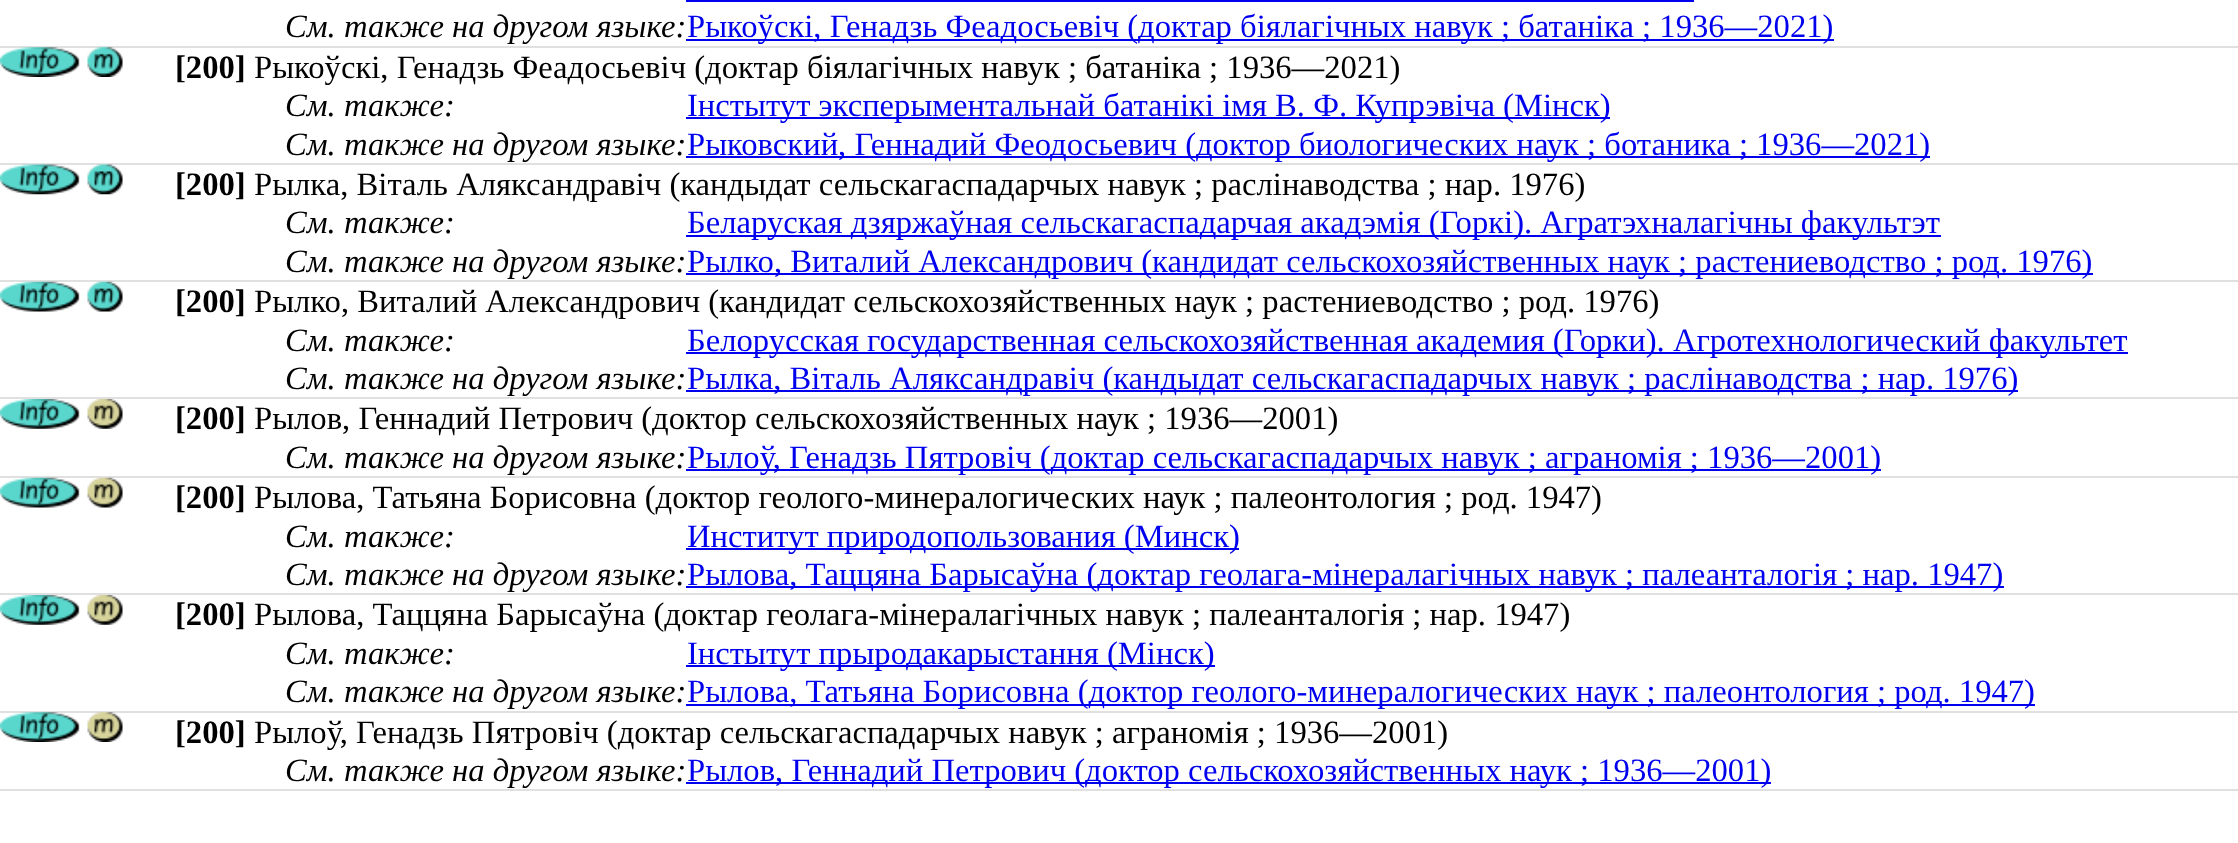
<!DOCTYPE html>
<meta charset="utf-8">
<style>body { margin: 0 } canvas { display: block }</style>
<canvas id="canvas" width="2238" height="843"></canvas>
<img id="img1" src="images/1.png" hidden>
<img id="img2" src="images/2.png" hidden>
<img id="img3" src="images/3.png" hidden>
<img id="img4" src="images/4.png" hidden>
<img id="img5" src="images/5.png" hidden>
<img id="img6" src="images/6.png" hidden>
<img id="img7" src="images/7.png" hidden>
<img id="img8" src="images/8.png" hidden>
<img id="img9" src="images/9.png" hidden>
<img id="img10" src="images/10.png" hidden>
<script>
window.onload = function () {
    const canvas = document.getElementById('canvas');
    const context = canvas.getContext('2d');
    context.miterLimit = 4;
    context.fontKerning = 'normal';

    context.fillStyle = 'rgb(255, 255, 255)';
    context.fillRect(0, 0, 2238, 843);
    context.fillStyle = 'rgb(224, 224, 224)';
    context.fillRect(0, 46, 2238, 2);
    context.fillStyle = 'rgb(0, 0, 238)';
    context.fillRect(686, 0, 1008, 2);
    context.fillRect(686, 39, 1148, 2);
    context.drawImage(document.getElementById('img1'), 0, 47, 80, 30);
    context.drawImage(document.getElementById('img2'), 87, 47, 36, 30);
    context.fillStyle = 'rgb(224, 224, 224)';
    context.fillRect(0, 163, 2238, 2);
    context.fillStyle = 'rgb(0, 0, 238)';
    context.fillRect(686, 117, 924, 2);
    context.fillRect(686, 156, 1244, 2);
    context.drawImage(document.getElementById('img3'), 0, 164, 80, 31);
    context.drawImage(document.getElementById('img4'), 87, 164, 36, 31);
    context.fillStyle = 'rgb(224, 224, 224)';
    context.fillRect(0, 280, 2238, 2);
    context.fillStyle = 'rgb(0, 0, 238)';
    context.fillRect(686, 235, 1255, 2);
    context.fillRect(686, 273, 1407, 2);
    context.drawImage(document.getElementById('img5'), 0, 281, 80, 31);
    context.drawImage(document.getElementById('img6'), 87, 281, 36, 31);
    context.fillStyle = 'rgb(224, 224, 224)';
    context.fillRect(0, 397, 2238, 2);
    context.fillStyle = 'rgb(0, 0, 238)';
    context.fillRect(686, 352, 1442, 2);
    context.fillRect(686, 390, 1332, 2);
    context.drawImage(document.getElementById('img7'), 0, 399, 80, 30);
    context.drawImage(document.getElementById('img8'), 87, 399, 36, 30);
    context.fillStyle = 'rgb(224, 224, 224)';
    context.fillRect(0, 476, 2238, 2);
    context.fillStyle = 'rgb(0, 0, 238)';
    context.fillRect(686, 469, 1195, 2);
    context.drawImage(document.getElementById('img5'), 0, 477, 80, 31);
    context.drawImage(document.getElementById('img9'), 87, 477, 36, 31);
    context.fillStyle = 'rgb(224, 224, 224)';
    context.fillRect(0, 593, 2238, 2);
    context.fillStyle = 'rgb(0, 0, 238)';
    context.fillRect(686, 548, 553, 2);
    context.fillRect(686, 586, 1318, 2);
    context.drawImage(document.getElementById('img7'), 0, 595, 80, 30);
    context.drawImage(document.getElementById('img8'), 87, 595, 36, 30);
    context.fillStyle = 'rgb(224, 224, 224)';
    context.fillRect(0, 711, 2238, 2);
    context.fillStyle = 'rgb(0, 0, 238)';
    context.fillRect(686, 665, 529, 2);
    context.fillRect(686, 704, 1349, 2);
    context.drawImage(document.getElementById('img1'), 0, 712, 80, 30);
    context.drawImage(document.getElementById('img10'), 87, 712, 36, 30);
    context.fillStyle = 'rgb(224, 224, 224)';
    context.fillRect(0, 789, 2238, 2);
    context.fillStyle = 'rgb(0, 0, 238)';
    context.fillRect(686, 782, 1085, 2);
    context.font = 'italic 32.65px Liberation Serif';
    context.fillStyle = 'rgb(0, 0, 0)';
    context.fillText('См. также на другом языке:', 285, 37);
    context.font = '32.65px Liberation Serif';
    context.fillStyle = 'rgb(0, 0, 238)';
    context.fillText('Рыкоўскі, Генадзь Феадосьевіч (доктар біялагічных навук ; батаніка ; 1936—2021)', 687, 37);
    context.font = 'bold 32.65px Liberation Serif';
    context.fillStyle = 'rgb(0, 0, 0)';
    context.fillText('[200]', 175, 78);
    context.font = '32.65px Liberation Serif';
    context.fillText('Рыкоўскі, Генадзь Феадосьевіч (доктар біялагічных навук ; батаніка ; 1936—2021)', 254, 78);
    context.font = 'italic 32.65px Liberation Serif';
    context.fillText('См. также:', 285, 116);
    context.font = '32.65px Liberation Serif';
    context.fillStyle = 'rgb(0, 0, 238)';
    context.fillText('Інстытут эксперыментальнай батанікі імя В. Ф. Купрэвіча (Мінск)', 687, 116);
    context.font = 'italic 32.65px Liberation Serif';
    context.fillStyle = 'rgb(0, 0, 0)';
    context.fillText('См. также на другом языке:', 285, 155);
    context.font = '32.65px Liberation Serif';
    context.fillStyle = 'rgb(0, 0, 238)';
    context.fillText('Рыковский, Геннадий Феодосьевич (доктор биологических наук ; ботаника ; 1936—2021)', 687, 155);
    context.font = 'bold 32.65px Liberation Serif';
    context.fillStyle = 'rgb(0, 0, 0)';
    context.fillText('[200]', 175, 195);
    context.font = '32.65px Liberation Serif';
    context.fillText('Рылка, Вiталь Аляксандравiч (кандыдат сельскагаспадарчых навук ; раслінаводства ; нар. 1976)', 254, 195);
    context.font = 'italic 32.65px Liberation Serif';
    context.fillText('См. также:', 285, 233);
    context.font = '32.65px Liberation Serif';
    context.fillStyle = 'rgb(0, 0, 238)';
    context.fillText('Беларуская дзяржаўная сельскагаспадарчая акадэмія (Горкі). Агратэхналагічны факультэт', 687, 233);
    context.font = 'italic 32.65px Liberation Serif';
    context.fillStyle = 'rgb(0, 0, 0)';
    context.fillText('См. также на другом языке:', 285, 272);
    context.font = '32.65px Liberation Serif';
    context.fillStyle = 'rgb(0, 0, 238)';
    context.fillText('Рылко, Виталий Александрович (кандидат сельскохозяйственных наук ; растениеводство ; род. 1976)', 687, 272);
    context.font = 'bold 32.65px Liberation Serif';
    context.fillStyle = 'rgb(0, 0, 0)';
    context.fillText('[200]', 175, 312);
    context.font = '32.65px Liberation Serif';
    context.fillText('Рылко, Виталий Александрович (кандидат сельскохозяйственных наук ; растениеводство ; род. 1976)', 254, 312);
    context.font = 'italic 32.65px Liberation Serif';
    context.fillText('См. также:', 285, 351);
    context.font = '32.65px Liberation Serif';
    context.fillStyle = 'rgb(0, 0, 238)';
    context.fillText('Белорусская государственная сельскохозяйственная академия (Горки). Агротехнологический факультет', 687, 351);
    context.font = 'italic 32.65px Liberation Serif';
    context.fillStyle = 'rgb(0, 0, 0)';
    context.fillText('См. также на другом языке:', 285, 389);
    context.font = '32.65px Liberation Serif';
    context.fillStyle = 'rgb(0, 0, 238)';
    context.fillText('Рылка, Вiталь Аляксандравiч (кандыдат сельскагаспадарчых навук ; раслінаводства ; нар. 1976)', 687, 389);
    context.font = 'bold 32.65px Liberation Serif';
    context.fillStyle = 'rgb(0, 0, 0)';
    context.fillText('[200]', 175, 429);
    context.font = '32.65px Liberation Serif';
    context.fillText('Рылов, Геннадий Петрович (доктор сельскохозяйственных наук ; 1936—2001)', 254, 429);
    context.font = 'italic 32.65px Liberation Serif';
    context.fillText('См. также на другом языке:', 285, 468);
    context.font = '32.65px Liberation Serif';
    context.fillStyle = 'rgb(0, 0, 238)';
    context.fillText('Рылоў, Генадзь Пятровіч (доктар сельскагаспадарчых навук ; аграномія ; 1936—2001)', 687, 468);
    context.font = 'bold 32.65px Liberation Serif';
    context.fillStyle = 'rgb(0, 0, 0)';
    context.fillText('[200]', 175, 508);
    context.font = '32.65px Liberation Serif';
    context.fillText('Рылова, Татьяна Борисовна (доктор геолого-минералогических наук ; палеонтология ; род. 1947)', 254, 508);
    context.font = 'italic 32.65px Liberation Serif';
    context.fillText('См. также:', 285, 547);
    context.font = '32.65px Liberation Serif';
    context.fillStyle = 'rgb(0, 0, 238)';
    context.fillText('Институт природопользования (Минск)', 687, 547);
    context.font = 'italic 32.65px Liberation Serif';
    context.fillStyle = 'rgb(0, 0, 0)';
    context.fillText('См. также на другом языке:', 285, 585);
    context.font = '32.65px Liberation Serif';
    context.fillStyle = 'rgb(0, 0, 238)';
    context.fillText('Рылова, Таццяна Барысаўна (доктар геолага-мінералагічных навук ; палеанталогія ; нар. 1947)', 687, 585);
    context.font = 'bold 32.65px Liberation Serif';
    context.fillStyle = 'rgb(0, 0, 0)';
    context.fillText('[200]', 175, 625);
    context.font = '32.65px Liberation Serif';
    context.fillText('Рылова, Таццяна Барысаўна (доктар геолага-мінералагічных навук ; палеанталогія ; нар. 1947)', 254, 625);
    context.font = 'italic 32.65px Liberation Serif';
    context.fillText('См. также:', 285, 664);
    context.font = '32.65px Liberation Serif';
    context.fillStyle = 'rgb(0, 0, 238)';
    context.fillText('Інстытут прыродакарыстання (Мінск)', 687, 664);
    context.font = 'italic 32.65px Liberation Serif';
    context.fillStyle = 'rgb(0, 0, 0)';
    context.fillText('См. также на другом языке:', 285, 702);
    context.font = '32.65px Liberation Serif';
    context.fillStyle = 'rgb(0, 0, 238)';
    context.fillText('Рылова, Татьяна Борисовна (доктор геолого-минералогических наук ; палеонтология ; род. 1947)', 687, 702);
    context.font = 'bold 32.65px Liberation Serif';
    context.fillStyle = 'rgb(0, 0, 0)';
    context.fillText('[200]', 175, 743);
    context.font = '32.65px Liberation Serif';
    context.fillText('Рылоў, Генадзь Пятровіч (доктар сельскагаспадарчых навук ; аграномія ; 1936—2001)', 254, 743);
    context.font = 'italic 32.65px Liberation Serif';
    context.fillText('См. также на другом языке:', 285, 781);
    context.font = '32.65px Liberation Serif';
    context.fillStyle = 'rgb(0, 0, 238)';
    context.fillText('Рылов, Геннадий Петрович (доктор сельскохозяйственных наук ; 1936—2001)', 687, 781);
};
</script>
